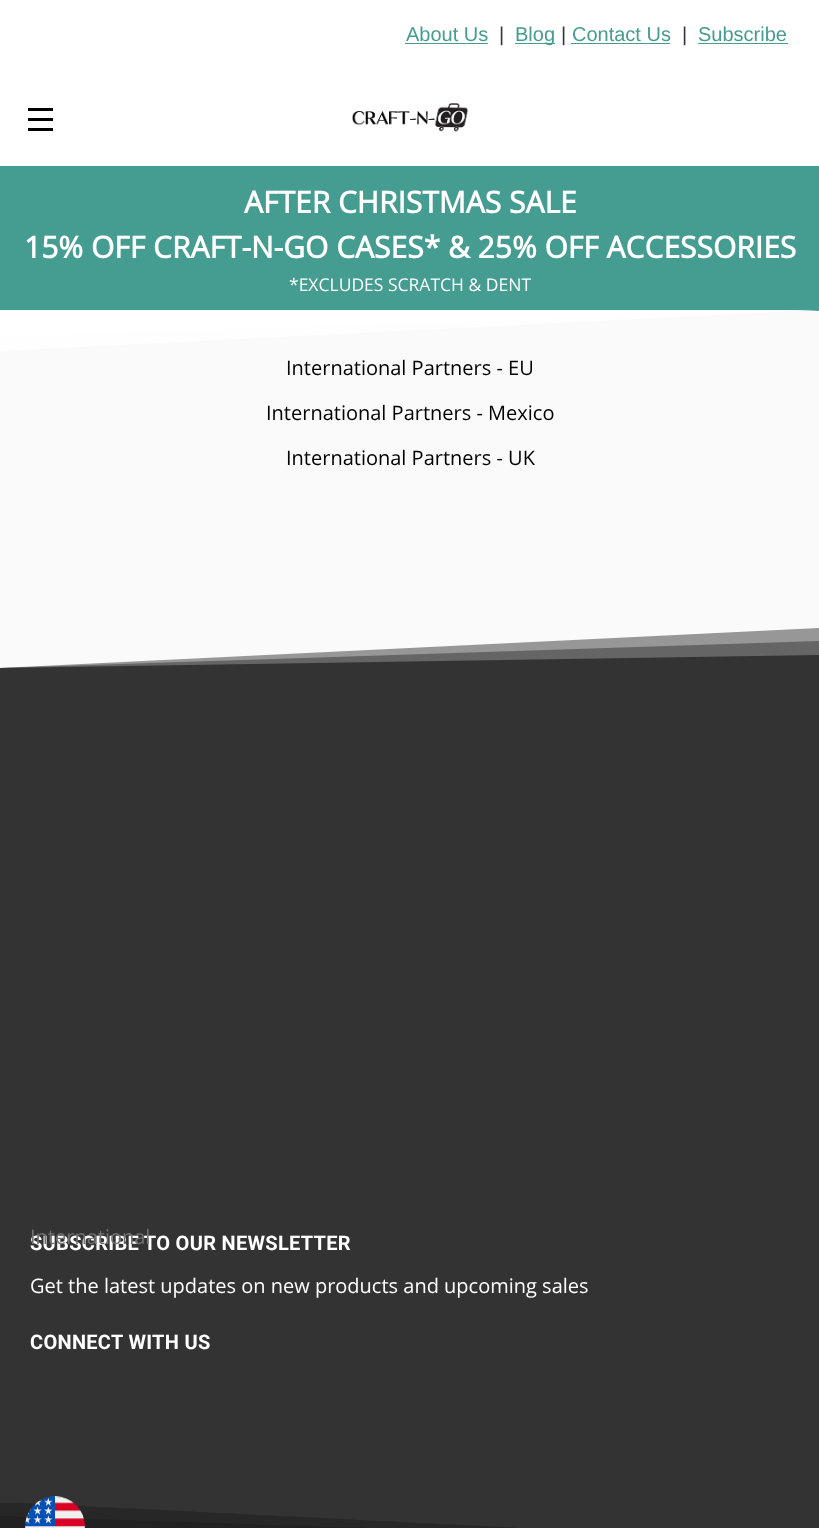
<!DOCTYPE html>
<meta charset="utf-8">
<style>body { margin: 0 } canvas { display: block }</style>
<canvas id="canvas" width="819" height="1528"></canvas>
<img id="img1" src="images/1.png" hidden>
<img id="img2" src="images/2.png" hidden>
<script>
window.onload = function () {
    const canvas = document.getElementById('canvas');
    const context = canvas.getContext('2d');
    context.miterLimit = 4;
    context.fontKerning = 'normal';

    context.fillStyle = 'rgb(250, 250, 250)';
    context.fillRect(0, 0, 819, 1528);
    context.fillStyle = 'rgb(255, 255, 255)';
    context.fillRect(0, 0, 819, 166);
    context.fillStyle = 'rgb(69, 156, 145)';
    context.fillRect(405, 43, 83, 1);
    context.fillRect(515, 43, 40, 1);
    context.fillRect(571, 43, 99, 1);
    context.fillRect(698, 43, 90, 1);
    context.fillStyle = 'rgb(0, 0, 0)';
    context.fillRect(28, 118, 25, 3);
    context.fillRect(28, 108, 25, 3);
    context.fillRect(28, 128, 25, 3);
    context.drawImage(document.getElementById('img1'), 352, 103, 117, 29);
    context.fillStyle = 'rgb(69, 156, 145)';
    context.fillRect(0, 166, 819, 145);
    context.fillStyle = 'rgba(255, 255, 255, 0.7)';
    context.beginPath();
    context.moveTo(0, 351);
    context.lineTo(0, 310);
    context.lineTo(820, 310);
    context.closePath();
    context.fill();
    context.beginPath();
    context.moveTo(0, 337);
    context.lineTo(0, 310);
    context.lineTo(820, 310);
    context.closePath();
    context.fill();
    context.fillStyle = 'rgb(255, 255, 255)';
    context.beginPath();
    context.moveTo(0, 324);
    context.lineTo(0, 310);
    context.lineTo(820, 310);
    context.closePath();
    context.fill();
    context.fillStyle = 'rgb(51, 51, 51)';
    context.fillRect(0, 668, 819, 860);
    context.fillStyle = 'rgb(151, 151, 151)';
    context.beginPath();
    context.moveTo(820, 628);
    context.lineTo(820, 668);
    context.lineTo(0, 668);
    context.closePath();
    context.fill();
    context.fillStyle = 'rgba(51, 51, 51, 0.5)';
    context.beginPath();
    context.moveTo(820, 641);
    context.lineTo(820, 668);
    context.lineTo(0, 668);
    context.closePath();
    context.fill();
    context.fillStyle = 'rgb(51, 51, 51)';
    context.beginPath();
    context.moveTo(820, 655);
    context.lineTo(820, 668);
    context.lineTo(0, 668);
    context.closePath();
    context.fill();
    context.save();
    context.beginPath();
    context.rect(0, 1503, 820, 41);
    context.clip();
    context.fillStyle = 'rgb(39, 39, 39)';
    context.beginPath();
    context.moveTo(0, 1502);
    context.lineTo(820, 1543);
    context.lineTo(0, 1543);
    context.closePath();
    context.fill();
    context.restore();
    context.fillStyle = 'rgb(33, 33, 33)';
    context.beginPath();
    context.moveTo(0, 1516);
    context.lineTo(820, 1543);
    context.lineTo(0, 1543);
    context.closePath();
    context.fill();
    context.drawImage(document.getElementById('img2'), 25, 1496, 60, 32);
    context.font = '20px Liberation Sans';
    context.fillStyle = 'rgb(69, 156, 145)';
    context.fillText('About Us', 406, 41);
    context.fillStyle = 'rgb(49, 52, 64)';
    context.fillText('|', 499, 41);
    context.fillStyle = 'rgb(69, 156, 145)';
    context.fillText('Blog', 515, 41);
    context.fillStyle = 'rgb(49, 52, 64)';
    context.fillText('|', 561, 41);
    context.fillStyle = 'rgb(69, 156, 145)';
    context.fillText('Contact Us', 572, 41);
    context.fillStyle = 'rgb(49, 52, 64)';
    context.fillText('|', 682, 41);
    context.fillStyle = 'rgb(69, 156, 145)';
    context.fillText('Subscribe', 698, 41);
    context.font = 'bold 30px Open Sans';
    context.fillStyle = 'rgb(255, 255, 255)';
    context.fillText('AFTER CHRISTMAS SALE', 244, 213);
    context.fillText('15% OFF CRAFT-N-GO CASES* & 25% OFF ACCESSORIES', 24, 258);
    context.font = '17.5px Open Sans';
    context.fillText('*EXCLUDES SCRATCH & DENT', 289, 291);
    context.font = '20px Open Sans';
    context.fillStyle = 'rgb(0, 0, 0)';
    context.fillText('International Partners - EU', 286, 375);
    context.fillText('International Partners - Mexico', 266, 420);
    context.fillText('International Partners - UK', 286, 465);
    context.letterSpacing = '0.3px';
    context.font = 'bold 20px Roboto';
    context.fillStyle = 'rgb(255, 255, 255)';
    context.fillText('SUBSCRIBE TO OUR NEWSLETTER', 30, 1250);
    context.letterSpacing = '0px';
    context.font = '20px Open Sans';
    context.fillStyle = 'rgb(113, 113, 113)';
    context.fillText('International', 30, 1244);
    context.fillStyle = 'rgb(255, 255, 255)';
    context.fillText('Get the latest updates on new products and upcoming sales', 30, 1293);
    context.letterSpacing = '0.3px';
    context.font = 'bold 20px Roboto';
    context.fillText('CONNECT WITH US', 30, 1349);
};
</script>
